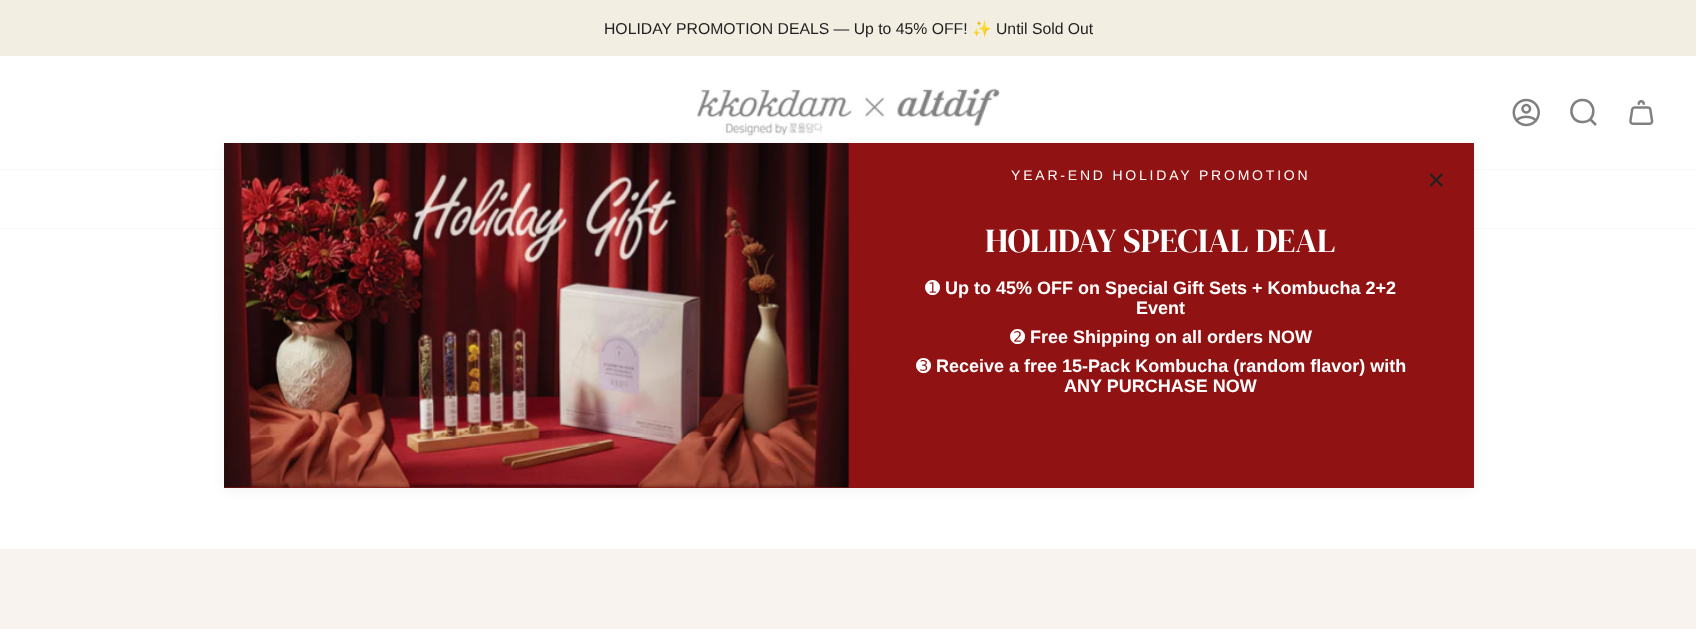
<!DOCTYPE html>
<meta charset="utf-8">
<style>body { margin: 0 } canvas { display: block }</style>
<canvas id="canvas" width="1696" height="629"></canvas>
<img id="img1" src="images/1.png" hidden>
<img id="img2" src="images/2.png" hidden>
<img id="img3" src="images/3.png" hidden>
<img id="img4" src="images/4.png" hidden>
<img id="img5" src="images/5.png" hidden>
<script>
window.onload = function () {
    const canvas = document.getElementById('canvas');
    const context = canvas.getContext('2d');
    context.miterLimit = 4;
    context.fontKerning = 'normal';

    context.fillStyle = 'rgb(255, 255, 255)';
    context.fillRect(0, 0, 1696, 629);
    context.fillStyle = 'rgb(243, 238, 226)';
    context.fillRect(0, 0, 1696, 56);
    context.fillStyle = 'rgb(248, 248, 248)';
    context.fillRect(0, 228, 1696, 1);
    context.drawImage(document.getElementById('img1'), 694, 88, 307, 49);
    context.drawImage(document.getElementById('img2'), 1512, 98, 28, 29);
    context.beginPath();
    context.moveTo(1582.5, 100);
    context.bezierCurveTo(1597, 100, 1597, 123, 1582, 122);
    context.bezierCurveTo(1567.5, 121.5, 1568, 100, 1582.5, 100);
    context.closePath();
    context.moveTo(1590, 119);
    context.lineTo(1596, 125);
    context.strokeStyle = 'rgb(128, 128, 128)';
    context.lineWidth = 2.5;
    context.stroke();
    context.drawImage(document.getElementById('img3'), 1629, 100, 25, 25);
    context.fillRect(0, 169, 1696, 1);
    context.fillStyle = 'rgba(0, 0, 0, 0.05)';
    context.filter = 'blur(6px)';
    context.beginPath();
    context.rect(224, 145, 1250, 345);
    context.fill();
    context.filter = 'none';
    context.fillStyle = 'rgb(144, 18, 18)';
    context.fillRect(224, 143, 1250, 345);
    context.drawImage(document.getElementById('img4'), 224, 143, 625, 345);
    context.drawImage(document.getElementById('img5'), 1429, 173, 14, 14);
    context.fillStyle = 'rgb(248, 243, 238)';
    context.fillRect(0, 549, 1696, 80);
    context.font = '15.75px Liberation Sans';
    context.fillStyle = 'rgb(33, 33, 33)';
    context.fillText('HOLIDAY PROMOTION DEALS — Up to 45% OFF!', 604, 34);
    context.font = '15.75px Noto Color Emoji';
    context.fillText('✨', 972, 34);
    context.font = '15.75px Liberation Sans';
    context.fillText('Until Sold Out', 996, 34);
    context.letterSpacing = '2.8px';
    context.font = '14px Liberation Sans';
    context.fillStyle = 'rgb(255, 255, 255)';
    context.fillText('YEAR-END HOLIDAY PROMOTION', 1011, 180);
    context.letterSpacing = '0px';
    context.font = '33.75px DM Serif Display';
    context.fillText('HOLIDAY SPECIAL DEAL', 985, 252);
    context.font = '18px DejaVu Sans';
    context.fillText('➊', 925, 294);
    context.font = 'bold 18px Liberation Sans';
    context.fillText('Up to 45% OFF on Special Gift Sets + Kombucha 2+2', 945, 294);
    context.fillText('Event', 1136, 314);
    context.font = '18px DejaVu Sans';
    context.fillText('➋', 1010, 343);
    context.font = 'bold 18px Liberation Sans';
    context.fillText('Free Shipping on all orders NOW', 1030, 343);
    context.font = '18px DejaVu Sans';
    context.fillText('➌', 916, 372);
    context.font = 'bold 18px Liberation Sans';
    context.fillText('Receive a free 15-Pack Kombucha (random flavor) with', 936, 372);
    context.fillText('ANY PURCHASE NOW', 1064, 392);
};
</script>
